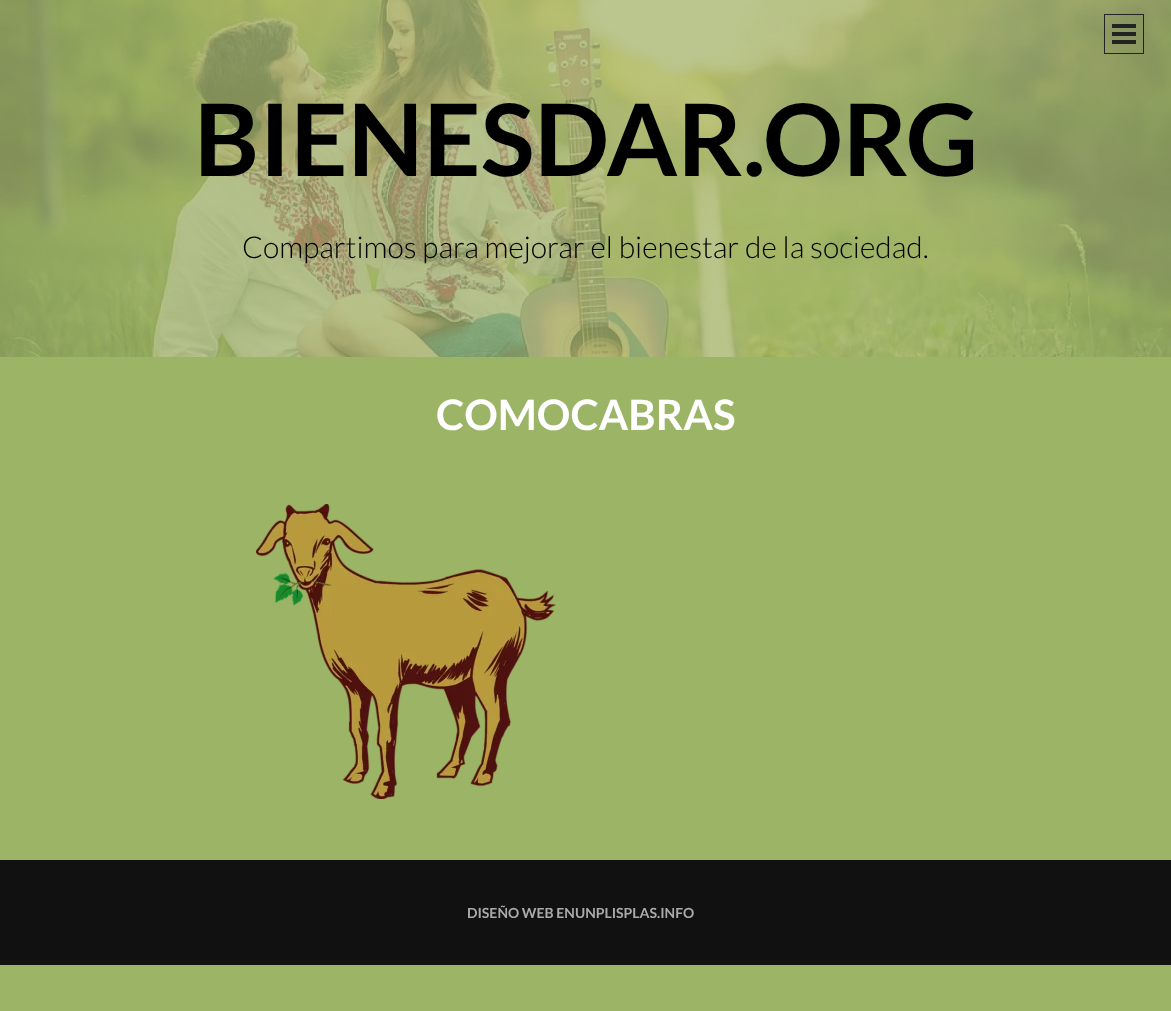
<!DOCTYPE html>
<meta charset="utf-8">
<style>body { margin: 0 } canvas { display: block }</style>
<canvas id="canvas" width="1171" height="1011"></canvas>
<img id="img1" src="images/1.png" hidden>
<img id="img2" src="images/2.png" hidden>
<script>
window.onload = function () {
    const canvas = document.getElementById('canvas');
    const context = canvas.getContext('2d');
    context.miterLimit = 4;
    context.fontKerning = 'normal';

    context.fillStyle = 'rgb(156, 180, 102)';
    context.fillRect(0, 0, 1171, 1011);
    context.drawImage(document.getElementById('img1'), 0, 0, 1171, 357);
    context.strokeStyle = 'rgb(34, 34, 34)';
    context.strokeRect(1104.5, 14.5, 39, 39);
    context.fillStyle = 'rgb(34, 34, 34)';
    context.fillRect(1112, 32, 24, 4);
    context.fillRect(1112, 24, 24, 4);
    context.fillRect(1112, 40, 24, 4);
    context.drawImage(document.getElementById('img2'), 256, 504, 300, 295);
    context.fillStyle = 'rgb(17, 17, 17)';
    context.fillRect(0, 860, 1171, 105);
    context.font = 'bold 100px Lato';
    context.fillStyle = 'rgb(0, 0, 0)';
    context.fillText('BIENESDAR.ORG', 194, 176);
    context.font = '300 30px Lato';
    context.fillText('Compartimos para mejorar el bienestar de la sociedad.', 242, 258);
    context.font = 'bold 42px Lato';
    context.fillStyle = 'rgb(255, 255, 255)';
    context.fillText('COMOCABRAS', 436, 430);
    context.font = 'bold 14px Lato';
    context.fillStyle = 'rgb(170, 170, 170)';
    context.fillText('DISEÑO WEB ENUNPLISPLAS.INFO', 467, 918);
};
</script>
